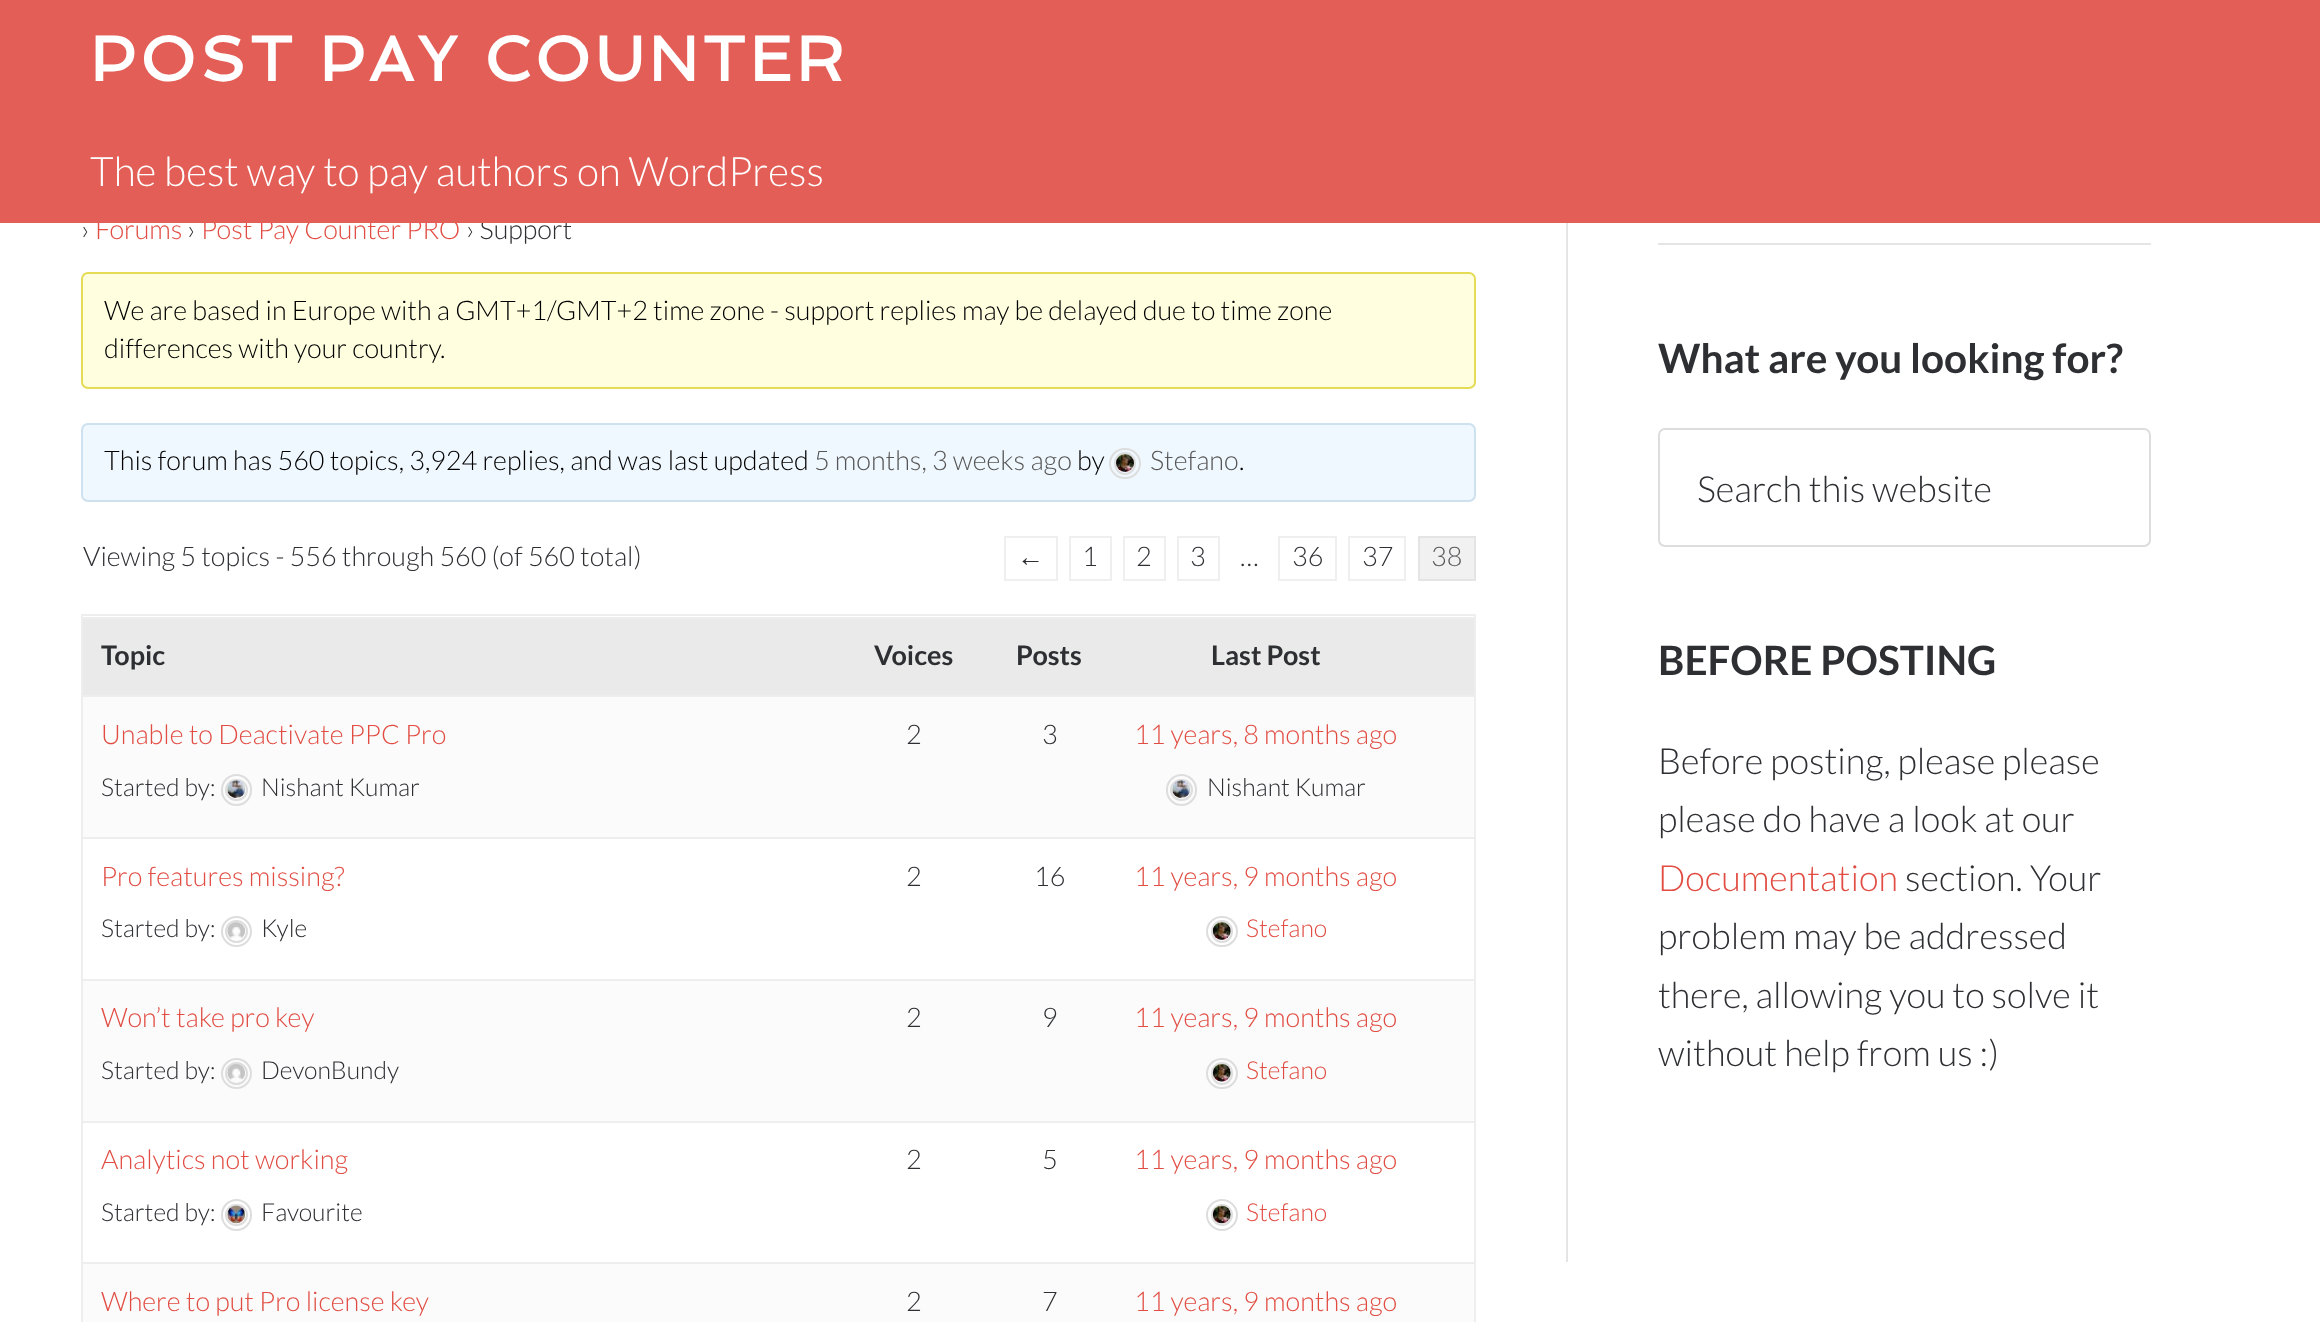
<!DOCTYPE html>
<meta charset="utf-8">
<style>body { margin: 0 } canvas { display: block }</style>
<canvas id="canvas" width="2320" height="1322"></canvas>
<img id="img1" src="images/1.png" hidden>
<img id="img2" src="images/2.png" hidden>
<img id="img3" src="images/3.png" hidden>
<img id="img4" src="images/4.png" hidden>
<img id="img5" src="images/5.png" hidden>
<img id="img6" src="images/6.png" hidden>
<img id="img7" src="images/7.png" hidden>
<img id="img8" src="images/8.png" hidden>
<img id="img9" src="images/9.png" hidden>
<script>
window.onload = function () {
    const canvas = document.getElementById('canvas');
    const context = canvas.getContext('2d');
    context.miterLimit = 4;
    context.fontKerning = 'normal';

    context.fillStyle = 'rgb(255, 255, 255)';
    context.fillRect(0, 0, 2320, 1322);
    context.fillStyle = 'rgb(255, 255, 224)';
    context.beginPath();
    context.roundRect(82, 273, 1393, 115, 6);
    context.fill();
    context.strokeStyle = 'rgb(230, 219, 85)';
    context.lineWidth = 2;
    context.stroke();
    context.fillStyle = 'rgb(240, 248, 255)';
    context.beginPath();
    context.roundRect(82, 424, 1393, 77, 6);
    context.fill();
    context.strokeStyle = 'rgb(206, 225, 239)';
    context.stroke();
    context.beginPath();
    context.roundRect(1110, 449, 30, 29, 14.5);
    context.strokeStyle = 'rgb(221, 221, 221)';
    context.stroke();
    context.beginPath();
    context.roundRect(1115, 453, 20, 21, 10);
    context.stroke();
    context.drawImage(document.getElementById('img1'), 1116, 454, 18, 18);
    context.strokeStyle = 'rgb(239, 239, 239)';
    context.strokeRect(1005, 537, 52, 43);
    context.strokeRect(1070, 537, 41, 43);
    context.strokeRect(1124, 537, 41, 43);
    context.strokeRect(1178, 537, 41, 43);
    context.strokeRect(1279, 537, 57, 43);
    context.strokeRect(1349, 537, 56, 43);
    context.fillStyle = 'rgb(241, 241, 241)';
    context.beginPath();
    context.rect(1419, 537, 56, 43);
    context.fill();
    context.strokeStyle = 'rgb(228, 228, 228)';
    context.stroke();
    context.strokeStyle = 'rgb(238, 238, 238)';
    context.strokeRect(82, 615, 1393, 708);
    context.fillStyle = 'rgb(234, 234, 234)';
    context.fillRect(83, 619, 1391, 76);
    context.fillStyle = 'rgb(238, 238, 238)';
    context.fillRect(83, 617, 1391, 2);
    context.fillStyle = 'rgb(251, 251, 251)';
    context.fillRect(83, 697, 1391, 140);
    context.fillStyle = 'rgb(238, 238, 238)';
    context.fillRect(83, 695, 1391, 2);
    context.beginPath();
    context.roundRect(222, 775, 29, 30, 14.5);
    context.strokeStyle = 'rgb(221, 221, 221)';
    context.stroke();
    context.beginPath();
    context.roundRect(226, 780, 21, 20, 10);
    context.stroke();
    context.drawImage(document.getElementById('img2'), 227, 780, 19, 19);
    context.beginPath();
    context.roundRect(1167, 775, 29, 30, 14.5);
    context.stroke();
    context.beginPath();
    context.roundRect(1171, 780, 21, 20, 10);
    context.stroke();
    context.drawImage(document.getElementById('img3'), 1172, 780, 19, 19);
    context.fillRect(83, 837, 1391, 2);
    context.beginPath();
    context.arc(236.5, 931.5, 14.5, 0, 2 * Math.PI);
    context.stroke();
    context.beginPath();
    context.arc(236.5, 931.5, 10.5, 0, 2 * Math.PI);
    context.stroke();
    context.drawImage(document.getElementById('img4'), 227, 922, 18, 17);
    context.beginPath();
    context.roundRect(1207, 917, 30, 29, 14.5);
    context.stroke();
    context.beginPath();
    context.roundRect(1212, 921, 20, 21, 10);
    context.stroke();
    context.drawImage(document.getElementById('img5'), 1212, 922, 19, 18);
    context.fillStyle = 'rgb(251, 251, 251)';
    context.fillRect(83, 981, 1391, 140);
    context.fillStyle = 'rgb(238, 238, 238)';
    context.fillRect(83, 979, 1391, 2);
    context.beginPath();
    context.arc(236.5, 1073.5, 14.5, 0, 2 * Math.PI);
    context.stroke();
    context.beginPath();
    context.arc(236.5, 1073.5, 10.5, 0, 2 * Math.PI);
    context.stroke();
    context.drawImage(document.getElementById('img6'), 227, 1064, 18, 16);
    context.beginPath();
    context.roundRect(1207, 1059, 30, 29, 14.5);
    context.stroke();
    context.beginPath();
    context.roundRect(1212, 1063, 20, 21, 10);
    context.stroke();
    context.drawImage(document.getElementById('img7'), 1212, 1063, 19, 19);
    context.fillRect(83, 1121, 1391, 2);
    context.beginPath();
    context.roundRect(222, 1200, 29, 30, 14.5);
    context.stroke();
    context.beginPath();
    context.roundRect(226, 1205, 21, 20, 10);
    context.stroke();
    context.drawImage(document.getElementById('img8'), 227, 1205, 19, 19);
    context.beginPath();
    context.arc(1222, 1215, 15, 0, 2 * Math.PI);
    context.stroke();
    context.beginPath();
    context.arc(1222, 1215, 10, 0, 2 * Math.PI);
    context.stroke();
    context.drawImage(document.getElementById('img9'), 1212, 1205, 19, 19);
    context.fillStyle = 'rgb(251, 251, 251)';
    context.fillRect(83, 1264, 1391, 58);
    context.fillStyle = 'rgb(238, 238, 238)';
    context.fillRect(83, 1262, 1391, 2);
    context.fillStyle = 'rgb(229, 229, 229)';
    context.fillRect(1566, 223, 2, 1039);
    context.fillRect(1658, 243, 493, 2);
    context.beginPath();
    context.roundRect(1659, 429, 491, 117, 6);
    context.stroke();
    context.font = '300 27px Lato';
    context.fillStyle = 'rgb(46, 47, 51)';
    context.fillText('›', 81, 239);
    context.fillStyle = 'rgb(225, 77, 67)';
    context.fillText('Forums', 95, 239);
    context.fillStyle = 'rgb(46, 47, 51)';
    context.fillText('›', 187, 239);
    context.fillStyle = 'rgb(225, 77, 67)';
    context.fillText('Post Pay Counter PRO', 201, 239);
    context.fillStyle = 'rgb(46, 47, 51)';
    context.fillText('› Support', 466, 239);
    context.fillStyle = 'rgb(227, 94, 86)';
    context.fillRect(0, 0, 2320, 223);
    context.font = '300 40.5px Lato';
    context.fillStyle = 'rgb(255, 255, 255)';
    context.fillText('The best way to pay authors on WordPress', 90, 186);
    context.letterSpacing = '4.5px';
    context.font = 'bold 63px Spinnaker';
    context.fillText('POST PAY COUNTER', 90, 81);
    context.letterSpacing = '0px';
    context.font = '300 27px Lato';
    context.fillStyle = 'rgb(0, 0, 0)';
    context.fillText('We are based in Europe with a GMT+1/GMT+2 time zone - support replies may be delayed due to time zone', 104, 320);
    context.fillText('differences with your country.', 104, 358);
    context.fillText('This forum has 560 topics, 3,924 replies, and was last updated', 104, 470);
    context.fillStyle = 'rgb(85, 85, 85)';
    context.fillText('5 months, 3 weeks ago', 814, 470);
    context.fillStyle = 'rgb(0, 0, 0)';
    context.fillText('by', 1077, 470);
    context.fillStyle = 'rgb(85, 85, 85)';
    context.fillText('Stefano', 1150, 470);
    context.fillStyle = 'rgb(0, 0, 0)';
    context.fillText('.', 1239, 470);
    context.fillStyle = 'rgb(46, 47, 51)';
    context.fillText('Viewing 5 topics - 556 through 560 (of 560 total)', 83, 566);
    context.font = '27px Liberation Sans';
    context.fillText('←', 1017, 566);
    context.font = '300 27px Lato';
    context.fillText('1', 1082, 566);
    context.fillText('2', 1136, 566);
    context.fillText('3', 1190, 566);
    context.fillText('…', 1240, 566);
    context.fillText('36', 1292, 566);
    context.fillText('37', 1362, 566);
    context.fillStyle = 'rgb(88, 89, 92)';
    context.fillText('38', 1431, 566);
    context.font = 'bold 27px Lato';
    context.fillStyle = 'rgb(46, 47, 51)';
    context.fillText('Topic', 101, 665);
    context.fillText('Voices', 874, 665);
    context.fillText('Posts', 1016, 665);
    context.fillText('Last Post', 1211, 665);
    context.font = '300 27px Lato';
    context.fillStyle = 'rgb(225, 77, 67)';
    context.fillText('Unable to Deactivate PPC Pro', 101, 744);
    context.font = '300 24.75px Lato';
    context.fillStyle = 'rgb(46, 47, 51)';
    context.fillText('Started by:', 101, 796);
    context.fillText('Nishant Kumar', 261, 796);
    context.font = '300 27px Lato';
    context.fillText('2', 906, 744);
    context.fillText('3', 1042, 744);
    context.fillStyle = 'rgb(225, 77, 67)';
    context.fillText('11 years, 8 months ago', 1134, 744);
    context.font = '300 24.75px Lato';
    context.fillStyle = 'rgb(46, 47, 51)';
    context.fillText('Nishant Kumar', 1207, 796);
    context.font = '300 27px Lato';
    context.fillStyle = 'rgb(225, 77, 67)';
    context.fillText('Pro features missing?', 101, 886);
    context.font = '300 24.75px Lato';
    context.fillStyle = 'rgb(46, 47, 51)';
    context.fillText('Started by:', 101, 937);
    context.fillText('Kyle', 261, 937);
    context.font = '300 27px Lato';
    context.fillText('2', 906, 886);
    context.fillText('16', 1034, 886);
    context.fillStyle = 'rgb(225, 77, 67)';
    context.fillText('11 years, 9 months ago', 1134, 886);
    context.font = '300 24.75px Lato';
    context.fillText('Stefano', 1246, 937);
    context.font = '300 27px Lato';
    context.fillText('Won’t take pro key', 101, 1027);
    context.font = '300 24.75px Lato';
    context.fillStyle = 'rgb(46, 47, 51)';
    context.fillText('Started by:', 101, 1079);
    context.fillText('DevonBundy', 261, 1079);
    context.font = '300 27px Lato';
    context.fillText('2', 906, 1027);
    context.fillText('9', 1042, 1027);
    context.fillStyle = 'rgb(225, 77, 67)';
    context.fillText('11 years, 9 months ago', 1134, 1027);
    context.font = '300 24.75px Lato';
    context.fillText('Stefano', 1246, 1079);
    context.font = '300 27px Lato';
    context.fillText('Analytics not working', 101, 1169);
    context.font = '300 24.75px Lato';
    context.fillStyle = 'rgb(46, 47, 51)';
    context.fillText('Started by:', 101, 1221);
    context.fillText('Favourite', 261, 1221);
    context.font = '300 27px Lato';
    context.fillText('2', 906, 1169);
    context.fillText('5', 1042, 1169);
    context.fillStyle = 'rgb(225, 77, 67)';
    context.fillText('11 years, 9 months ago', 1134, 1169);
    context.font = '300 24.75px Lato';
    context.fillText('Stefano', 1246, 1221);
    context.font = '300 27px Lato';
    context.fillText('Where to put Pro license key', 101, 1311);
    context.fillStyle = 'rgb(46, 47, 51)';
    context.fillText('2', 906, 1311);
    context.fillText('7', 1042, 1311);
    context.fillStyle = 'rgb(225, 77, 67)';
    context.fillText('11 years, 9 months ago', 1134, 1311);
    context.font = 'bold 40.5px Lato';
    context.fillStyle = 'rgb(46, 47, 51)';
    context.fillText('What are you looking for?', 1658, 373);
    context.font = '300 36px Lato';
    context.fillText('Search this website', 1697, 502);
    context.font = 'bold 40.5px Lato';
    context.fillText('BEFORE POSTING', 1658, 675);
    context.font = '300 36px Lato';
    context.fillText('Before posting, please please', 1658, 774);
    context.fillText('please do have a look at our', 1658, 832);
    context.fillStyle = 'rgb(225, 77, 67)';
    context.fillText('Documentation', 1658, 891);
    context.fillStyle = 'rgb(46, 47, 51)';
    context.fillText('section. Your', 1905, 891);
    context.fillText('problem may be addressed', 1658, 949);
    context.fillText('there, allowing you to solve it', 1658, 1008);
    context.fillText('without help from us :)', 1658, 1066);
};
</script>
